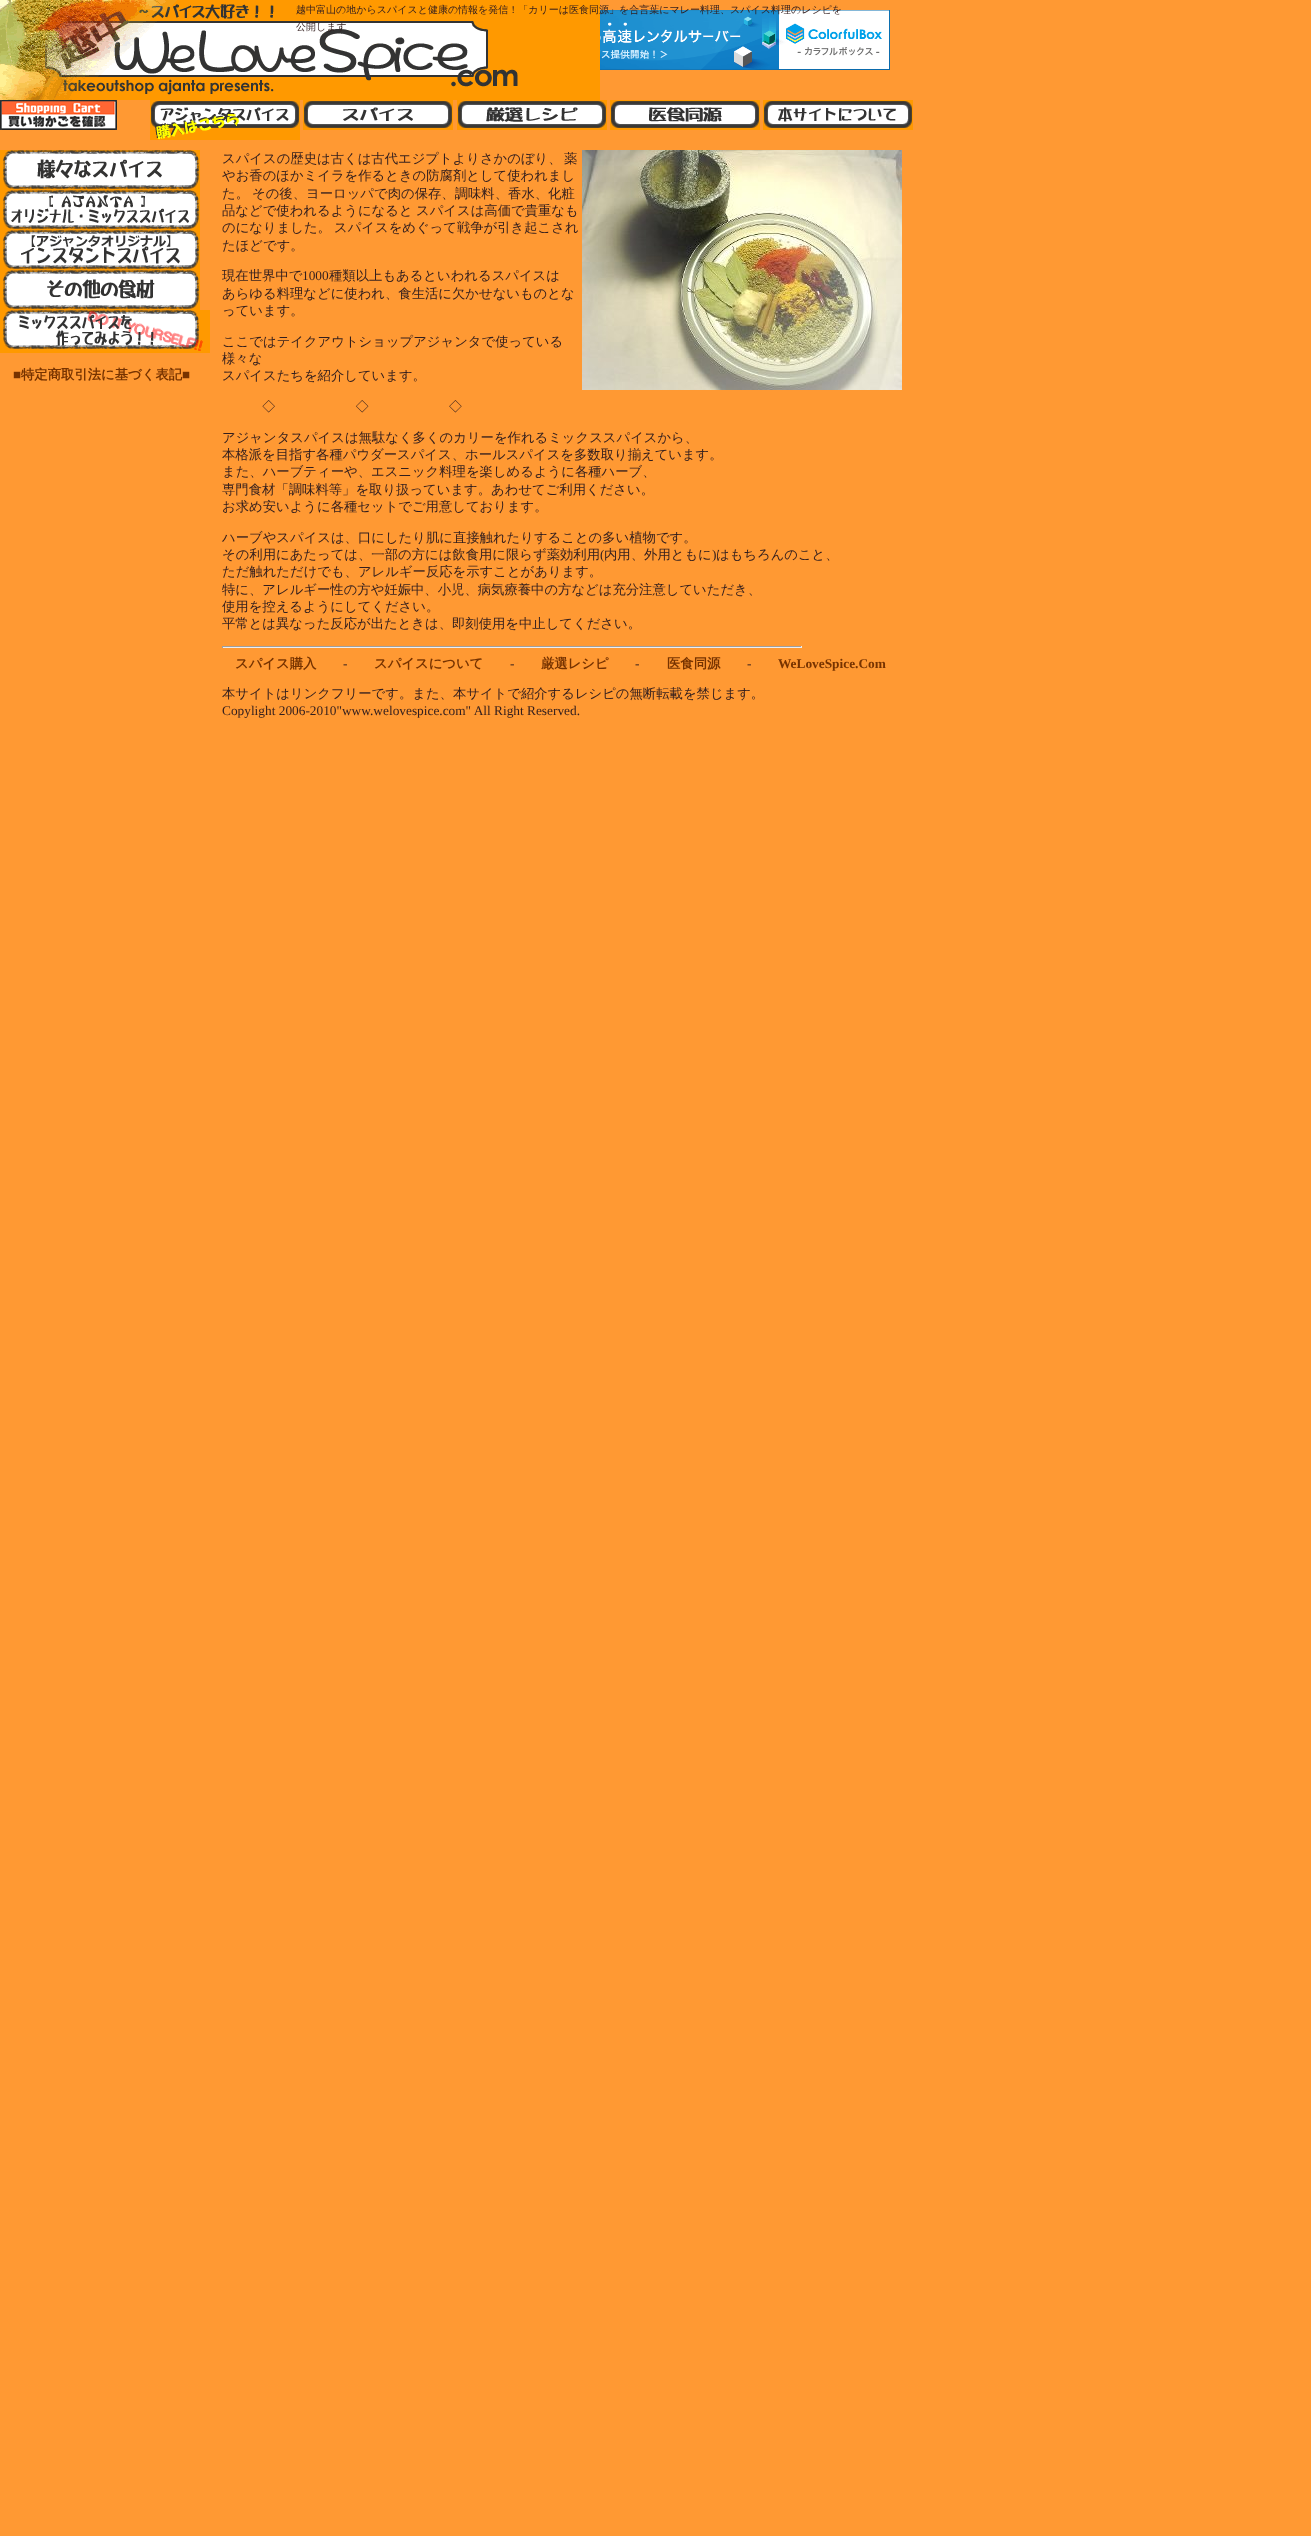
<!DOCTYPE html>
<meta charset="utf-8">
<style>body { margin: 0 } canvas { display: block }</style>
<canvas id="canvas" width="1311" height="2536"></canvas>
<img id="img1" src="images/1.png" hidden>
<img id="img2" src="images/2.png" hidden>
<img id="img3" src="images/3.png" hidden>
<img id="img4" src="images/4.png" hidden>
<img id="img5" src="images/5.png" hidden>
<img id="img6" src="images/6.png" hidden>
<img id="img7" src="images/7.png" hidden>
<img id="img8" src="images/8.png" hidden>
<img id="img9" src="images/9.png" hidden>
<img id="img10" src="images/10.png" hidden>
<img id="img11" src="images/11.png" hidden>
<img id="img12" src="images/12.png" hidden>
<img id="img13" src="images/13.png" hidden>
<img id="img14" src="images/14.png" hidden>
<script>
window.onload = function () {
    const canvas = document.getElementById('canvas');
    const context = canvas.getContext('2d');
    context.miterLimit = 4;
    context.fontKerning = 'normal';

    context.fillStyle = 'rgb(255, 153, 51)';
    context.fillRect(0, 0, 1311, 2536);
    context.drawImage(document.getElementById('img1'), 0, 0, 600, 100);
    context.drawImage(document.getElementById('img2'), 600, 10, 290, 60);
    context.drawImage(document.getElementById('img3'), 0, 100, 117, 30);
    context.drawImage(document.getElementById('img4'), 150, 100, 150, 40);
    context.drawImage(document.getElementById('img5'), 303, 100, 150, 30);
    context.drawImage(document.getElementById('img6'), 457, 100, 150, 30);
    context.drawImage(document.getElementById('img7'), 610, 100, 150, 30);
    context.drawImage(document.getElementById('img8'), 763, 100, 150, 30);
    context.drawImage(document.getElementById('img9'), 0, 150, 200, 40);
    context.drawImage(document.getElementById('img10'), 0, 190, 200, 40);
    context.drawImage(document.getElementById('img11'), 0, 230, 200, 40);
    context.drawImage(document.getElementById('img12'), 0, 270, 200, 40);
    context.drawImage(document.getElementById('img13'), 0, 310, 210, 43);
    context.drawImage(document.getElementById('img14'), 582, 150, 320, 240);
    context.fillStyle = 'rgb(159, 159, 159)';
    context.fillRect(222, 646, 580, 1);
    context.fillStyle = 'rgb(238, 238, 238)';
    context.fillRect(801, 646, 1, 2);
    context.fillRect(222, 647, 580, 1);
    context.fillStyle = 'rgb(159, 159, 159)';
    context.fillRect(222, 646, 1, 2);
    context.font = '500 10px WenQuanYi Zen Hei';
    context.fillStyle = 'rgb(50, 30, 30)';
    context.fillText('越中富山の地からスパイスと健康の情報を発信！「カリーは医食同源」を合言葉にマレー料理、スパイス料理のレシピを', 296, 13);
    context.fillText('公開します', 296, 30);
    context.font = 'bold 13.35px Liberation Serif';
    context.fillStyle = 'rgb(119, 51, 0)';
    context.fillText('■', 13, 379);
    context.font = 'bold 13.35px WenQuanYi Zen Hei';
    context.fillText('特定商取引法に基づく表記', 21, 379);
    context.font = 'bold 13.35px Liberation Serif';
    context.fillText('■', 182, 379);
    context.font = '500 13.35px WenQuanYi Zen Hei';
    context.fillStyle = 'rgb(50, 30, 30)';
    context.fillText('スパイスの歴史は古くは古代エジプトよりさかのぼり、', 222, 163);
    context.fillText('薬', 564, 163);
    context.fillText('やお香のほかミイラを作るときの防腐剤として使われまし', 222, 180);
    context.fillText('た。', 222, 198);
    context.fillText('その後、ヨーロッパで肉の保存、調味料、香水、化粧', 252, 198);
    context.fillText('品などで使われるようになると', 222, 215);
    context.fillText('スパイスは高価で貴重なも', 416, 215);
    context.fillText('のになりました。', 222, 232);
    context.fillText('スパイスをめぐって戦争が引き起こされ', 334, 232);
    context.fillText('たほどです。', 222, 250);
    context.fillText('現在世界中で', 222, 280);
    context.font = '13.35px Liberation Serif';
    context.fillText('1000', 302, 280);
    context.font = '500 13.35px WenQuanYi Zen Hei';
    context.fillText('種類以上もあるといわれるスパイスは', 329, 280);
    context.fillText('あらゆる料理などに使われ、食生活に欠かせないものとな', 222, 298);
    context.fillText('っています。', 222, 315);
    context.fillText('ここではテイクアウトショップアジャンタで使っている', 222, 346);
    context.fillText('様々な', 222, 363);
    context.fillText('スパイスたちを紹介しています。', 222, 380);
    context.fillText('◇　　　　　　◇　　　　　　◇', 262, 411);
    context.fillText('アジャンタスパイスは無駄なく多くのカリーを作れるミックススパイスから、', 222, 442);
    context.fillText('本格派を目指す各種パウダースパイス、ホールスパイスを多数取り揃えています。', 222, 459);
    context.fillText('また、ハーブティーや、エスニック料理を楽しめるように各種ハーブ、', 222, 476);
    context.fillText('専門食材「調味料等」を取り扱っています。あわせてご利用ください。', 222, 494);
    context.fillText('お求め安いように各種セットでご用意しております。', 222, 511);
    context.fillText('ハーブやスパイスは、口にしたり肌に直接触れたりすることの多い植物です。', 222, 542);
    context.fillText('その利用にあたっては、一部の方には飲食用に限らず薬効利用', 222, 559);
    context.font = '13.35px Liberation Serif';
    context.fillText('(', 600, 559);
    context.font = '500 13.35px WenQuanYi Zen Hei';
    context.fillText('内用、外用ともに', 604, 559);
    context.font = '13.35px Liberation Serif';
    context.fillText(')', 712, 559);
    context.font = '500 13.35px WenQuanYi Zen Hei';
    context.fillText('はもちろんのこと、', 716, 559);
    context.fillText('ただ触れただけでも、アレルギー反応を示すことがあります。', 222, 576);
    context.fillText('特に、アレルギー性の方や妊娠中、小児、病気療養中の方などは充分注意していただき、', 222, 594);
    context.fillText('使用を控えるようにしてください。', 222, 611);
    context.fillText('平常とは異なった反応が出たときは、即刻使用を中止してください。', 222, 628);
    context.font = 'bold 13.35px WenQuanYi Zen Hei';
    context.fillStyle = 'rgb(119, 51, 0)';
    context.fillText('スパイス購入', 235, 668);
    context.font = '13.35px Liberation Serif';
    context.fillStyle = 'rgb(50, 30, 30)';
    context.fillText('-', 343, 668);
    context.font = 'bold 13.35px WenQuanYi Zen Hei';
    context.fillStyle = 'rgb(119, 51, 0)';
    context.fillText('スパイスについて', 374, 668);
    context.font = '13.35px Liberation Serif';
    context.fillStyle = 'rgb(50, 30, 30)';
    context.fillText('-', 510, 668);
    context.font = 'bold 13.35px WenQuanYi Zen Hei';
    context.fillStyle = 'rgb(119, 51, 0)';
    context.fillText('厳選レシピ', 541, 668);
    context.font = '13.35px Liberation Serif';
    context.fillStyle = 'rgb(50, 30, 30)';
    context.fillText('-', 635, 668);
    context.font = 'bold 13.35px WenQuanYi Zen Hei';
    context.fillStyle = 'rgb(119, 51, 0)';
    context.fillText('医食同源', 667, 668);
    context.font = '13.35px Liberation Serif';
    context.fillStyle = 'rgb(50, 30, 30)';
    context.fillText('-', 747, 668);
    context.font = 'bold 13.35px Liberation Serif';
    context.fillStyle = 'rgb(119, 51, 0)';
    context.fillText('WeLoveSpice.Com', 778, 668);
    context.font = '500 13.35px WenQuanYi Zen Hei';
    context.fillStyle = 'rgb(50, 30, 30)';
    context.fillText('本サイトはリンクフリーです。また、本サイトで紹介するレシピの無断転載を禁じます。', 222, 698);
    context.font = '13.35px Liberation Serif';
    context.fillText('Copylight 2006-2010"www.welovespice.com" All Right Reserved.', 222, 715);
};
</script>
